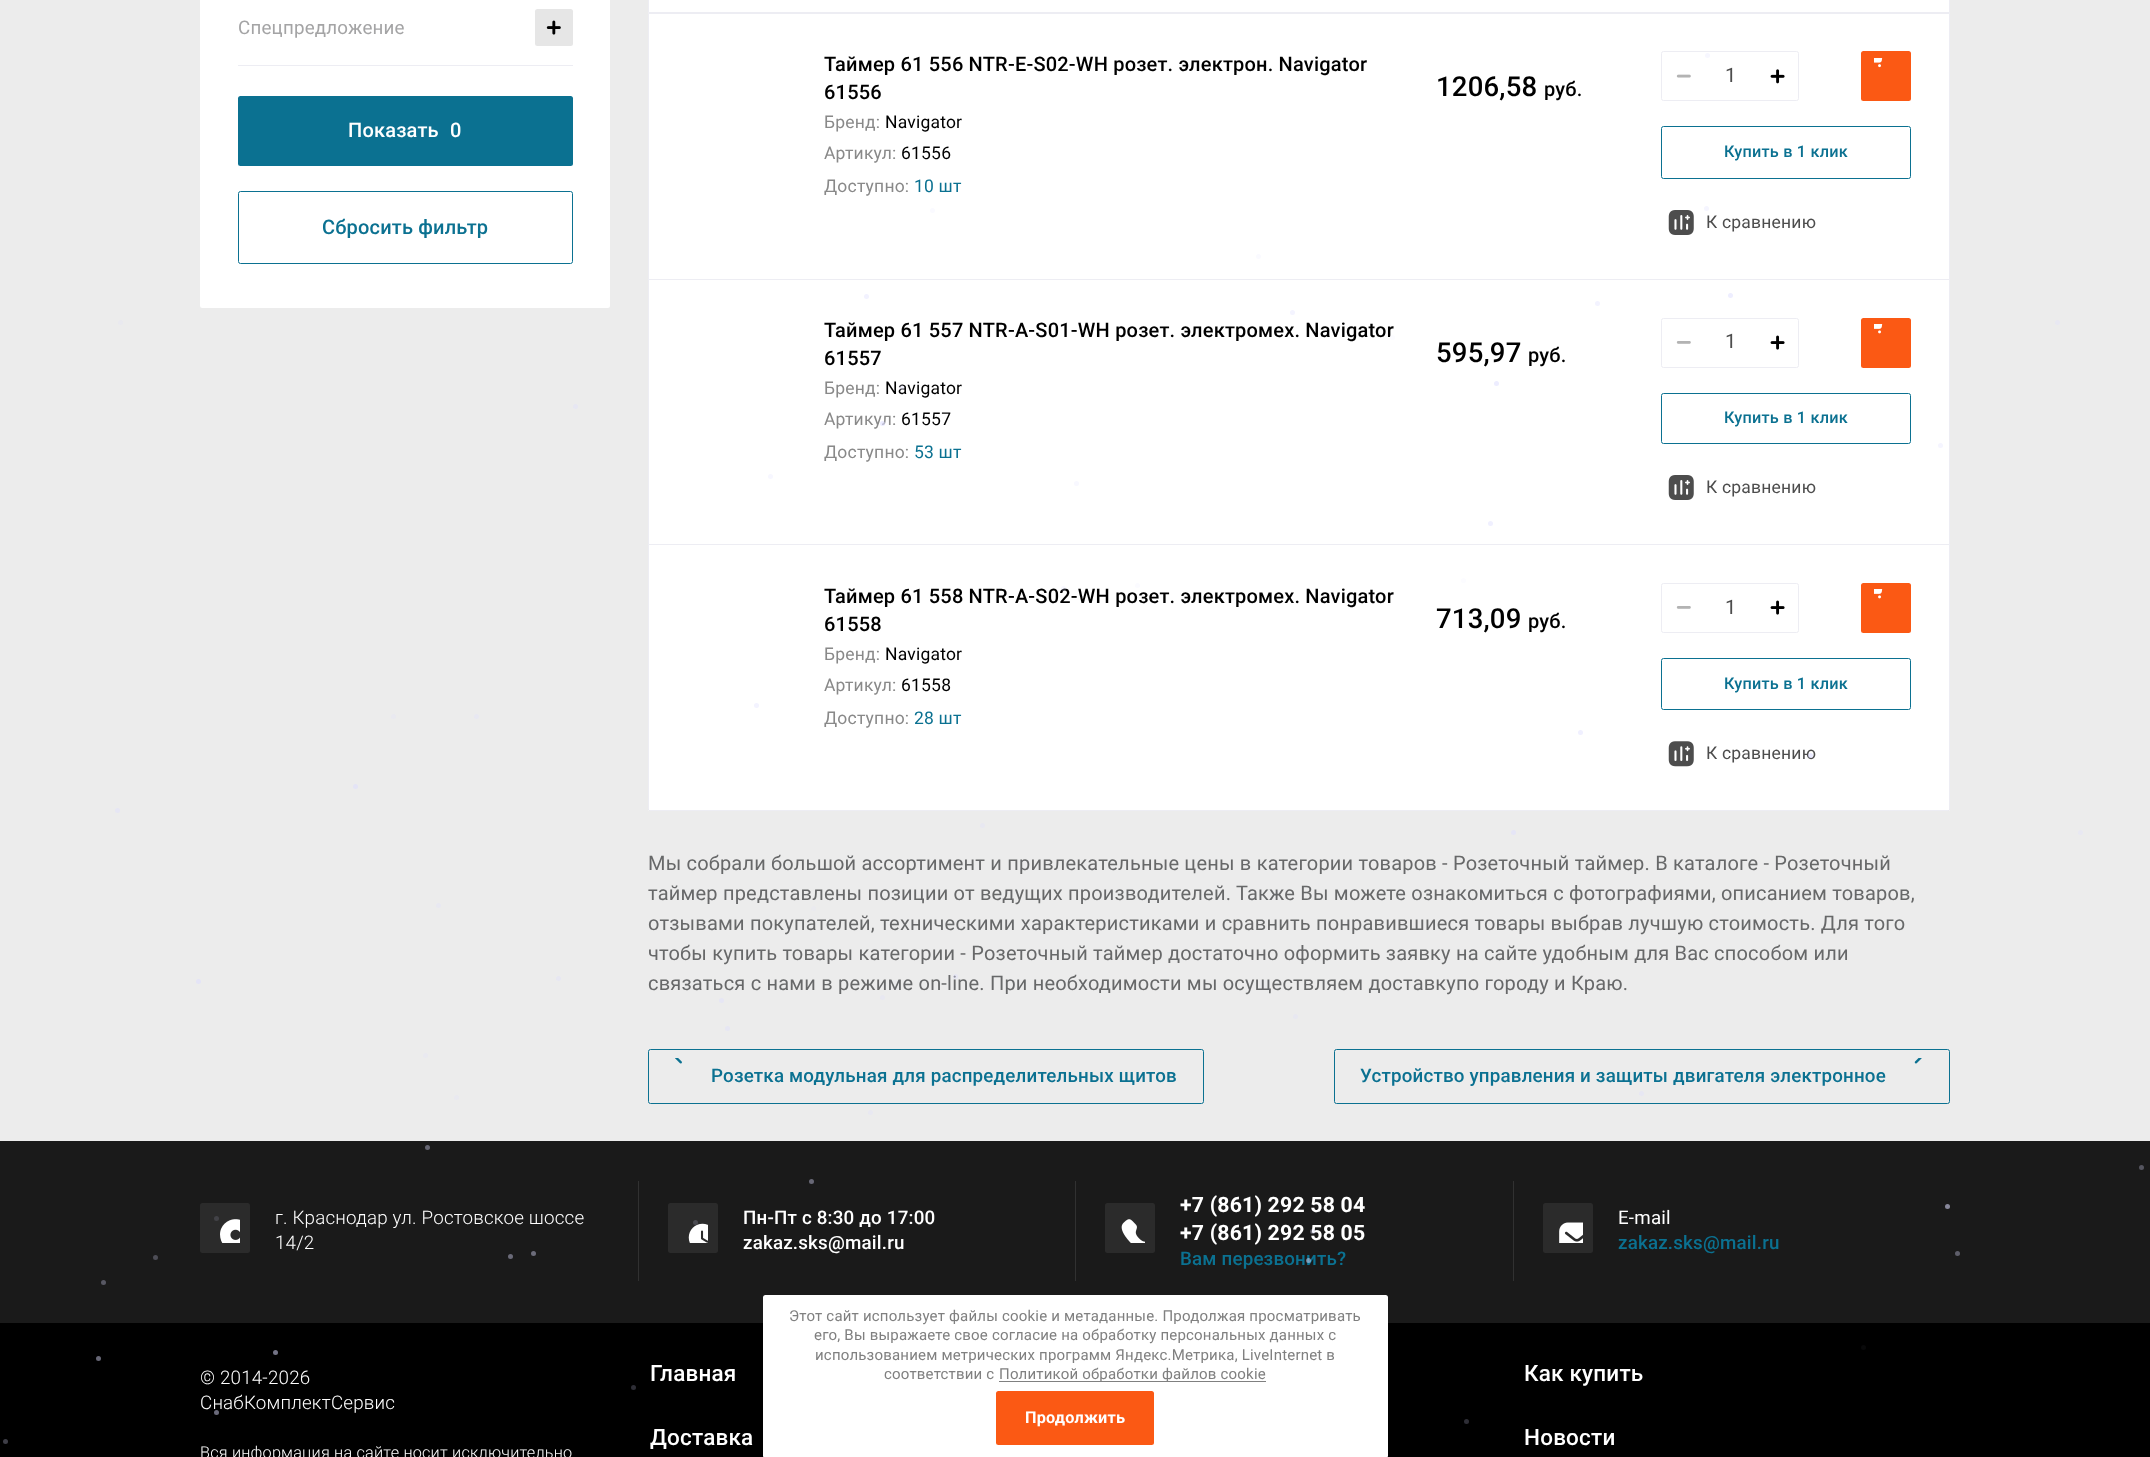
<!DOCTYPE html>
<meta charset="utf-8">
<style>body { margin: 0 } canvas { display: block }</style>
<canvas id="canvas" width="2150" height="1457"></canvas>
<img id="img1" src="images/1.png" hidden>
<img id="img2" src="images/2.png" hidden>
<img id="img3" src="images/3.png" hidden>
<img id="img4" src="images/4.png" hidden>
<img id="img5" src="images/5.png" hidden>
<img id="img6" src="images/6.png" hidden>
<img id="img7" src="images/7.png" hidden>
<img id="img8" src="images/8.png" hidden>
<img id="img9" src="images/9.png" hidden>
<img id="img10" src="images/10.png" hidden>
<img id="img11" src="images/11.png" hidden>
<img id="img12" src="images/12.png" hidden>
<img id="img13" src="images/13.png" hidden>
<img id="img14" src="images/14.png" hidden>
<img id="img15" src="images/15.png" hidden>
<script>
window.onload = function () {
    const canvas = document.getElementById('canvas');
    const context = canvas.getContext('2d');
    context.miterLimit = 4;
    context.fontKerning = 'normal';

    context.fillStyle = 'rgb(236, 236, 236)';
    context.fillRect(0, 0, 2150, 1457);
    context.fillStyle = 'rgb(255, 255, 255)';
    context.beginPath();
    context.roundRect(200, -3, 410, 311, 2.5);
    context.fill();
    context.fillStyle = 'rgb(237, 237, 243)';
    context.fillRect(238, 65, 335, 1);
    context.fillStyle = 'rgb(230, 230, 230)';
    context.beginPath();
    context.roundRect(535, 9, 38, 37, 2.5);
    context.fill();
    context.drawImage(document.getElementById('img1'), 546, 20, 15, 15);
    context.fillStyle = 'rgb(11, 113, 145)';
    context.beginPath();
    context.roundRect(238, 96, 335, 70, 2.5);
    context.fill();
    context.beginPath();
    context.roundRect(238.5, 191.5, 334, 72, 2);
    context.strokeStyle = 'rgb(11, 113, 145)';
    context.stroke();
    context.fillStyle = 'rgb(255, 255, 255)';
    context.fillRect(648, 0, 1302, 545);
    context.fillStyle = 'rgb(237, 237, 243)';
    context.beginPath();
    context.moveTo(1950, -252);
    context.lineTo(1950, 14);
    context.lineTo(1949, 12);
    context.lineTo(1949, -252);
    context.closePath();
    context.fill();
    context.fillStyle = 'rgba(210, 211, 224, 0.4)';
    context.beginPath();
    context.moveTo(1950, 14);
    context.lineTo(648, 14);
    context.lineTo(649, 12);
    context.lineTo(1949, 12);
    context.closePath();
    context.fill();
    context.beginPath();
    context.moveTo(648, 14);
    context.lineTo(648, -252);
    context.lineTo(649, -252);
    context.lineTo(649, 12);
    context.closePath();
    context.fill();
    context.fillStyle = 'rgb(237, 237, 243)';
    context.beginPath();
    context.moveTo(1950, 14);
    context.lineTo(1950, 280);
    context.lineTo(1949, 279);
    context.lineTo(1949, 14);
    context.closePath();
    context.fill();
    context.fillStyle = 'rgba(210, 211, 224, 0.4)';
    context.beginPath();
    context.moveTo(1950, 280);
    context.lineTo(648, 280);
    context.lineTo(649, 279);
    context.lineTo(1949, 279);
    context.closePath();
    context.fill();
    context.beginPath();
    context.moveTo(648, 280);
    context.lineTo(648, 14);
    context.lineTo(649, 14);
    context.lineTo(649, 279);
    context.closePath();
    context.fill();
    context.beginPath();
    context.roundRect(1661.5, 51.5, 137, 49, 2);
    context.strokeStyle = 'rgb(237, 237, 243)';
    context.stroke();
    context.drawImage(document.getElementById('img2'), 1676, 74, 15, 4);
    context.drawImage(document.getElementById('img3'), 1770, 69, 15, 15);
    context.fillStyle = 'rgb(251, 89, 20)';
    context.beginPath();
    context.roundRect(1861, 51, 50, 50, 2.5);
    context.fill();
    context.drawImage(document.getElementById('img4'), 1874, 58, 9, 10);
    context.beginPath();
    context.roundRect(1661.5, 126.5, 249, 52, 2);
    context.strokeStyle = 'rgb(11, 113, 145)';
    context.stroke();
    context.drawImage(document.getElementById('img5'), 1668, 210, 26, 25);
    context.fillStyle = 'rgb(237, 237, 243)';
    context.beginPath();
    context.moveTo(1950, 280);
    context.lineTo(1950, 545);
    context.lineTo(1949, 544);
    context.lineTo(1949, 280);
    context.closePath();
    context.fill();
    context.fillStyle = 'rgba(210, 211, 224, 0.4)';
    context.beginPath();
    context.moveTo(1950, 545);
    context.lineTo(648, 545);
    context.lineTo(649, 544);
    context.lineTo(1949, 544);
    context.closePath();
    context.fill();
    context.beginPath();
    context.moveTo(648, 545);
    context.lineTo(648, 280);
    context.lineTo(649, 280);
    context.lineTo(649, 544);
    context.closePath();
    context.fill();
    context.beginPath();
    context.roundRect(1661.5, 318.5, 137, 49, 2);
    context.strokeStyle = 'rgb(237, 237, 243)';
    context.stroke();
    context.drawImage(document.getElementById('img6'), 1676, 341, 15, 3);
    context.drawImage(document.getElementById('img7'), 1770, 335, 15, 15);
    context.fillStyle = 'rgb(251, 89, 20)';
    context.beginPath();
    context.roundRect(1861, 318, 50, 50, 2.5);
    context.fill();
    context.drawImage(document.getElementById('img8'), 1874, 324, 9, 10);
    context.beginPath();
    context.roundRect(1661.5, 393.5, 249, 50, 2);
    context.strokeStyle = 'rgb(11, 113, 145)';
    context.stroke();
    context.drawImage(document.getElementById('img5'), 1668, 475, 26, 25);
    context.fillStyle = 'rgb(255, 255, 255)';
    context.beginPath();
    context.roundRect(648, 545, 1302, 266, [0, 0, 2.5, 2.5]);
    context.fill();
    context.fillStyle = 'rgba(210, 211, 224, 0.4)';
    context.fillRect(1949, 545, 1, 265);
    context.fillRect(649, 810, 1300, 1);
    context.fillRect(648, 545, 1, 265);
    context.beginPath();
    context.roundRect(1661.5, 583.5, 137, 49, 2);
    context.strokeStyle = 'rgb(237, 237, 243)';
    context.stroke();
    context.drawImage(document.getElementById('img6'), 1676, 606, 15, 3);
    context.drawImage(document.getElementById('img7'), 1770, 600, 15, 15);
    context.fillStyle = 'rgb(251, 89, 20)';
    context.beginPath();
    context.roundRect(1861, 583, 50, 50, 2.5);
    context.fill();
    context.drawImage(document.getElementById('img8'), 1874, 589, 9, 10);
    context.beginPath();
    context.roundRect(1661.5, 658.5, 249, 51, 2);
    context.strokeStyle = 'rgb(11, 113, 145)';
    context.stroke();
    context.drawImage(document.getElementById('img9'), 1668, 741, 26, 26);
    context.beginPath();
    context.roundRect(648.5, 1049.5, 555, 54, 2);
    context.stroke();
    context.drawImage(document.getElementById('img10'), 675, 1058, 7, 6);
    context.fillStyle = 'rgb(231, 231, 243)';
    context.beginPath();
    context.arc(1641.5, 1093.5, 2.5, 0, 2 * Math.PI);
    context.fill();
    context.beginPath();
    context.roundRect(1334.5, 1049.5, 615, 54, 2);
    context.stroke();
    context.drawImage(document.getElementById('img11'), 1914, 1058, 8, 6);
    context.fillStyle = 'rgb(0, 0, 0)';
    context.fillRect(0, 1323, 2150, 134);
    context.fillStyle = 'rgb(26, 26, 26)';
    context.fillRect(0, 1141, 2150, 182);
    context.fillStyle = 'rgb(43, 43, 43)';
    context.beginPath();
    context.roundRect(200, 1203, 50, 50, 2.5);
    context.fill();
    context.drawImage(document.getElementById('img12'), 220, 1219, 20, 24);
    context.fillStyle = 'rgb(49, 49, 49)';
    context.fillRect(638, 1181, 1, 100);
    context.fillStyle = 'rgb(43, 43, 43)';
    context.beginPath();
    context.roundRect(668, 1203, 50, 50, 2.5);
    context.fill();
    context.drawImage(document.getElementById('img13'), 688, 1223, 20, 20);
    context.fillStyle = 'rgb(49, 49, 49)';
    context.fillRect(1075, 1181, 1, 100);
    context.fillStyle = 'rgb(43, 43, 43)';
    context.beginPath();
    context.roundRect(1105, 1203, 50, 50, 2.5);
    context.fill();
    context.drawImage(document.getElementById('img14'), 1121, 1219, 24, 24);
    context.fillStyle = 'rgb(49, 49, 49)';
    context.fillRect(1513, 1181, 1, 100);
    context.fillStyle = 'rgb(43, 43, 43)';
    context.beginPath();
    context.roundRect(1543, 1203, 50, 50, 2.5);
    context.fill();
    context.drawImage(document.getElementById('img15'), 1559, 1222, 24, 21);
    context.fillStyle = 'rgb(247, 247, 255)';
    context.beginPath();
    context.arc(1707.5, 55.5, 2.5, 0, 2 * Math.PI);
    context.fill();
    context.fillStyle = 'rgba(221, 221, 255, 0.06)';
    context.fillRect(1328, 63, 5, 5);
    context.fillStyle = 'rgb(250, 250, 255)';
    context.beginPath();
    context.arc(932.5, 210.5, 2.5, 0, 2 * Math.PI);
    context.fill();
    context.fillStyle = 'rgb(245, 245, 255)';
    context.beginPath();
    context.arc(1706.5, 208.5, 2.5, 0, 2 * Math.PI);
    context.fill();
    context.fillStyle = 'rgb(250, 250, 255)';
    context.beginPath();
    context.arc(1258.5, 256.5, 2.5, 0, 2 * Math.PI);
    context.fill();
    context.fillStyle = 'rgb(242, 242, 255)';
    context.beginPath();
    context.arc(866.5, 296.5, 2.5, 0, 2 * Math.PI);
    context.fill();
    context.fillStyle = 'rgb(238, 238, 255)';
    context.beginPath();
    context.arc(1730.5, 295.5, 2.5, 0, 2 * Math.PI);
    context.fill();
    context.fillStyle = 'rgb(243, 243, 255)';
    context.beginPath();
    context.arc(1597.5, 303.5, 2.5, 0, 2 * Math.PI);
    context.fill();
    context.fillStyle = 'rgb(244, 244, 255)';
    context.beginPath();
    context.arc(1292.5, 312.5, 2.5, 0, 2 * Math.PI);
    context.fill();
    context.fillStyle = 'rgb(233, 233, 239)';
    context.beginPath();
    context.arc(120.5, 322.5, 2.5, 0, 2 * Math.PI);
    context.fill();
    context.fillStyle = 'rgb(232, 232, 242)';
    context.beginPath();
    context.arc(2057.5, 322.5, 2.5, 0, 2 * Math.PI);
    context.fill();
    context.fillStyle = 'rgb(237, 237, 255)';
    context.beginPath();
    context.arc(1496.5, 383.5, 2.5, 0, 2 * Math.PI);
    context.fill();
    context.fillStyle = 'rgb(231, 231, 243)';
    context.beginPath();
    context.arc(575.5, 406.5, 2.5, 0, 2 * Math.PI);
    context.fill();
    context.fillStyle = 'rgb(245, 245, 255)';
    context.beginPath();
    context.arc(1940.5, 445.5, 2.5, 0, 2 * Math.PI);
    context.fill();
    context.fillStyle = 'rgb(247, 247, 255)';
    context.beginPath();
    context.arc(770.5, 476.5, 2.5, 0, 2 * Math.PI);
    context.fill();
    context.fillStyle = 'rgb(248, 248, 255)';
    context.beginPath();
    context.arc(1076.5, 483.5, 2.5, 0, 2 * Math.PI);
    context.fill();
    context.fillStyle = 'rgb(240, 240, 255)';
    context.beginPath();
    context.arc(1490.5, 523.5, 2.5, 0, 2 * Math.PI);
    context.fill();
    context.fillStyle = 'rgb(252, 252, 255)';
    context.beginPath();
    context.arc(1463.5, 580.5, 2.5, 0, 2 * Math.PI);
    context.fill();
    context.fillStyle = 'rgb(251, 251, 255)';
    context.beginPath();
    context.arc(1137.5, 585.5, 2.5, 0, 2 * Math.PI);
    context.fill();
    context.fillStyle = 'rgb(243, 243, 255)';
    context.beginPath();
    context.arc(756.5, 705.5, 2.5, 0, 2 * Math.PI);
    context.fill();
    context.fillStyle = 'rgb(233, 233, 240)';
    context.beginPath();
    context.arc(393.5, 716.5, 2.5, 0, 2 * Math.PI);
    context.fill();
    context.fillStyle = 'rgb(232, 232, 242)';
    context.beginPath();
    context.arc(476.5, 716.5, 2.5, 0, 2 * Math.PI);
    context.fill();
    context.fillStyle = 'rgb(240, 240, 255)';
    context.beginPath();
    context.arc(1580.5, 732.5, 2.5, 0, 2 * Math.PI);
    context.fill();
    context.fillStyle = 'rgb(228, 228, 246)';
    context.beginPath();
    context.arc(355.5, 786.5, 2.5, 0, 2 * Math.PI);
    context.fill();
    context.fillStyle = 'rgb(230, 230, 244)';
    context.beginPath();
    context.arc(117.5, 810.5, 2.5, 0, 2 * Math.PI);
    context.fill();
    context.fillStyle = 'rgb(232, 232, 241)';
    context.beginPath();
    context.arc(982.5, 825.5, 2.5, 0, 2 * Math.PI);
    context.fill();
    context.fillStyle = 'rgb(229, 229, 246)';
    context.beginPath();
    context.arc(1513.5, 832.5, 2.5, 0, 2 * Math.PI);
    context.fill();
    context.fillStyle = 'rgb(232, 232, 242)';
    context.beginPath();
    context.arc(2080.5, 832.5, 2.5, 0, 2 * Math.PI);
    context.fill();
    context.fillStyle = 'rgb(232, 232, 241)';
    context.beginPath();
    context.arc(438.5, 905.5, 2.5, 0, 2 * Math.PI);
    context.fill();
    context.fillStyle = 'rgb(234, 234, 239)';
    context.beginPath();
    context.arc(813.5, 908.5, 2.5, 0, 2 * Math.PI);
    context.fill();
    context.fillStyle = 'rgb(231, 231, 242)';
    context.beginPath();
    context.arc(558.5, 978.5, 2.5, 0, 2 * Math.PI);
    context.fill();
    context.fillStyle = 'rgb(228, 228, 246)';
    context.beginPath();
    context.arc(198.5, 981.5, 2.5, 0, 2 * Math.PI);
    context.fill();
    context.fillStyle = 'rgb(232, 232, 241)';
    context.beginPath();
    context.arc(882.5, 997.5, 2.5, 0, 2 * Math.PI);
    context.fill();
    context.fillStyle = 'rgb(230, 230, 244)';
    context.beginPath();
    context.arc(721.5, 1000.5, 2.5, 0, 2 * Math.PI);
    context.fill();
    context.fillStyle = 'rgb(232, 232, 241)';
    context.beginPath();
    context.arc(1295.5, 1016.5, 2.5, 0, 2 * Math.PI);
    context.fill();
    context.fillStyle = 'rgb(230, 230, 243)';
    context.beginPath();
    context.arc(727.5, 1028.5, 2.5, 0, 2 * Math.PI);
    context.fill();
    context.fillStyle = 'rgb(233, 233, 240)';
    context.beginPath();
    context.arc(425.5, 1055.5, 2.5, 0, 2 * Math.PI);
    context.fill();
    context.beginPath();
    context.arc(456.5, 1097.5, 2.5, 0, 2 * Math.PI);
    context.fill();
    context.fillStyle = 'rgb(232, 232, 241)';
    context.beginPath();
    context.arc(870.5, 1112.5, 2.5, 0, 2 * Math.PI);
    context.fill();
    context.fillStyle = 'rgb(102, 102, 115)';
    context.beginPath();
    context.arc(427.5, 1147.5, 2.5, 0, 2 * Math.PI);
    context.fill();
    context.fillStyle = 'rgb(85, 85, 95)';
    context.beginPath();
    context.arc(2141.5, 1167.5, 2.5, 0, 2 * Math.PI);
    context.fill();
    context.fillStyle = 'rgb(104, 104, 118)';
    context.beginPath();
    context.arc(811.5, 1181.5, 2.5, 0, 2 * Math.PI);
    context.fill();
    context.fillStyle = 'rgb(135, 135, 154)';
    context.beginPath();
    context.arc(1947.5, 1206.5, 2.5, 0, 2 * Math.PI);
    context.fill();
    context.fillStyle = 'rgb(66, 66, 71)';
    context.beginPath();
    context.arc(216.5, 1218.5, 2.5, 0, 2 * Math.PI);
    context.fill();
    context.fillStyle = 'rgb(75, 75, 81)';
    context.beginPath();
    context.arc(695.5, 1222.5, 2.5, 0, 2 * Math.PI);
    context.fill();
    context.fillStyle = 'rgb(108, 108, 122)';
    context.beginPath();
    context.arc(533.5, 1253.5, 2.5, 0, 2 * Math.PI);
    context.fill();
    context.fillStyle = 'rgb(94, 94, 106)';
    context.beginPath();
    context.arc(1957.5, 1253.5, 2.5, 0, 2 * Math.PI);
    context.fill();
    context.fillStyle = 'rgb(77, 77, 86)';
    context.beginPath();
    context.arc(155.5, 1257.5, 2.5, 0, 2 * Math.PI);
    context.fill();
    context.fillStyle = 'rgb(106, 106, 120)';
    context.beginPath();
    context.arc(510.5, 1256.5, 2.5, 0, 2 * Math.PI);
    context.fill();
    context.fillStyle = 'rgb(88, 88, 99)';
    context.beginPath();
    context.arc(103.5, 1282.5, 2.5, 0, 2 * Math.PI);
    context.fill();
    context.fillStyle = 'rgb(9, 9, 10)';
    context.beginPath();
    context.arc(1863.5, 1347.5, 2.5, 0, 2 * Math.PI);
    context.fill();
    context.fillStyle = 'rgb(115, 115, 133)';
    context.beginPath();
    context.arc(275.5, 1352.5, 2.5, 0, 2 * Math.PI);
    context.fill();
    context.fillStyle = 'rgb(102, 102, 117)';
    context.beginPath();
    context.arc(98.5, 1358.5, 2.5, 0, 2 * Math.PI);
    context.fill();
    context.fillStyle = 'rgb(46, 46, 54)';
    context.beginPath();
    context.arc(633.5, 1387.5, 2.5, 0, 2 * Math.PI);
    context.fill();
    context.beginPath();
    context.arc(1466.5, 1421.5, 2.5, 0, 2 * Math.PI);
    context.fill();
    context.fillStyle = 'rgb(62, 62, 71)';
    context.beginPath();
    context.arc(5.5, 1441.5, 2.5, 0, 2 * Math.PI);
    context.fill();
    context.fillStyle = 'rgb(255, 255, 255)';
    context.beginPath();
    context.roundRect(763, 1295, 625, 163, 2.5);
    context.fill();
    context.fillStyle = 'rgb(128, 128, 128)';
    context.fillRect(999, 1381, 267, 1);
    context.fillStyle = 'rgb(251, 89, 20)';
    context.beginPath();
    context.roundRect(996, 1391, 158, 54, 2.5);
    context.fill();
    context.letterSpacing = '0.2px';
    context.font = '18.75px Roboto';
    context.fillStyle = 'rgb(164, 164, 165)';
    context.fillText('Спецпредложение', 238, 34);
    context.font = '500 20px Roboto';
    context.fillStyle = 'rgb(255, 255, 255)';
    context.fillText('Показать', 348, 137);
    context.fillText('0', 450, 137);
    context.fillStyle = 'rgb(11, 113, 145)';
    context.fillText('Сбросить фильтр', 322, 234);
    context.fillStyle = 'rgb(0, 0, 0)';
    context.fillText('Таймер 61 556 NTR-E-S02-WH розет. электрон. Navigator', 824, 71);
    context.fillText('61556', 824, 99);
    context.font = '17.5px Roboto';
    context.fillStyle = 'rgb(137, 137, 137)';
    context.fillText('Бренд:', 824, 128);
    context.fillStyle = 'rgb(0, 0, 0)';
    context.fillText('Navigator', 885, 128);
    context.fillStyle = 'rgb(137, 137, 137)';
    context.fillText('Артикул:', 824, 159);
    context.fillStyle = 'rgb(0, 0, 0)';
    context.fillText('61556', 901, 159);
    context.fillStyle = 'rgb(137, 137, 137)';
    context.fillText('Доступно:', 824, 192);
    context.fillStyle = 'rgb(11, 113, 145)';
    context.fillText('10 шт', 914, 192);
    context.letterSpacing = '0px';
    context.font = '20px Roboto';
    context.fillStyle = 'rgb(77, 77, 77)';
    context.fillText('1', 1725, 82);
    context.letterSpacing = '0.2px';
    context.font = '500 27.5px Roboto';
    context.fillStyle = 'rgb(0, 0, 0)';
    context.fillText('1206,58', 1436, 96);
    context.font = '500 20px Roboto';
    context.fillText('руб.', 1544, 96);
    context.font = '500 16.25px Roboto';
    context.fillStyle = 'rgb(11, 113, 145)';
    context.fillText('Купить в 1 клик', 1724, 157);
    context.font = '17.5px Roboto';
    context.fillStyle = 'rgb(77, 77, 77)';
    context.fillText('К сравнению', 1706, 228);
    context.font = '500 20px Roboto';
    context.fillStyle = 'rgb(0, 0, 0)';
    context.fillText('Таймер 61 557 NTR-A-S01-WH розет. электромех. Navigator', 824, 337);
    context.fillText('61557', 824, 365);
    context.font = '17.5px Roboto';
    context.fillStyle = 'rgb(137, 137, 137)';
    context.fillText('Бренд:', 824, 394);
    context.fillStyle = 'rgb(0, 0, 0)';
    context.fillText('Navigator', 885, 394);
    context.fillStyle = 'rgb(137, 137, 137)';
    context.fillText('Артикул:', 824, 425);
    context.fillStyle = 'rgb(0, 0, 0)';
    context.fillText('61557', 901, 425);
    context.fillStyle = 'rgb(137, 137, 137)';
    context.fillText('Доступно:', 824, 458);
    context.fillStyle = 'rgb(11, 113, 145)';
    context.fillText('53 шт', 914, 458);
    context.letterSpacing = '0px';
    context.font = '20px Roboto';
    context.fillStyle = 'rgb(77, 77, 77)';
    context.fillText('1', 1725, 348);
    context.letterSpacing = '0.2px';
    context.font = '500 27.5px Roboto';
    context.fillStyle = 'rgb(0, 0, 0)';
    context.fillText('595,97', 1436, 362);
    context.font = '500 20px Roboto';
    context.fillText('руб.', 1528, 362);
    context.font = '500 16.25px Roboto';
    context.fillStyle = 'rgb(11, 113, 145)';
    context.fillText('Купить в 1 клик', 1724, 423);
    context.font = '17.5px Roboto';
    context.fillStyle = 'rgb(77, 77, 77)';
    context.fillText('К сравнению', 1706, 493);
    context.font = '500 20px Roboto';
    context.fillStyle = 'rgb(0, 0, 0)';
    context.fillText('Таймер 61 558 NTR-A-S02-WH розет. электромех. Navigator', 824, 603);
    context.fillText('61558', 824, 631);
    context.font = '17.5px Roboto';
    context.fillStyle = 'rgb(137, 137, 137)';
    context.fillText('Бренд:', 824, 660);
    context.fillStyle = 'rgb(0, 0, 0)';
    context.fillText('Navigator', 885, 660);
    context.fillStyle = 'rgb(137, 137, 137)';
    context.fillText('Артикул:', 824, 691);
    context.fillStyle = 'rgb(0, 0, 0)';
    context.fillText('61558', 901, 691);
    context.fillStyle = 'rgb(137, 137, 137)';
    context.fillText('Доступно:', 824, 724);
    context.fillStyle = 'rgb(11, 113, 145)';
    context.fillText('28 шт', 914, 724);
    context.letterSpacing = '0px';
    context.font = '20px Roboto';
    context.fillStyle = 'rgb(77, 77, 77)';
    context.fillText('1', 1725, 614);
    context.letterSpacing = '0.2px';
    context.font = '500 27.5px Roboto';
    context.fillStyle = 'rgb(0, 0, 0)';
    context.fillText('713,09', 1436, 628);
    context.font = '500 20px Roboto';
    context.fillText('руб.', 1528, 628);
    context.font = '500 16.25px Roboto';
    context.fillStyle = 'rgb(11, 113, 145)';
    context.fillText('Купить в 1 клик', 1724, 689);
    context.font = '17.5px Roboto';
    context.fillStyle = 'rgb(77, 77, 77)';
    context.fillText('К сравнению', 1706, 759);
    context.font = '20px Roboto';
    context.fillStyle = 'rgb(103, 104, 105)';
    context.fillText('Мы собрали большой ассортимент и привлекательные цены в категории товаров - Розеточный таймер. В каталоге - Розеточный', 648, 870);
    context.fillText('таймер представлены позиции от ведущих производителей. Также Вы можете ознакомиться с фотографиями, описанием товаров,', 648, 900);
    context.fillText('отзывами покупателей, техническими характеристиками и сравнить понравившиеся товары выбрав лучшую стоимость. Для того', 648, 930);
    context.fillText('чтобы купить товары категории - Розеточный таймер достаточно оформить заявку на сайте удобным для Вас способом или', 648, 960);
    context.fillText('связаться с нами в режиме on-line. При необходимости мы осуществляем доставкупо городу и Краю.', 648, 990);
    context.font = '500 18.75px Roboto';
    context.fillStyle = 'rgb(11, 113, 145)';
    context.fillText('Розетка модульная для распределительных щитов', 711, 1082);
    context.fillText('Устройство управления и защиты двигателя электронное', 1360, 1082);
    context.font = '300 18.75px Roboto';
    context.fillStyle = 'rgb(255, 255, 255)';
    context.fillText('г. Краснодар ул. Ростовское шоссе', 275, 1224);
    context.fillText('14/2', 275, 1249);
    context.font = '500 18.75px Roboto';
    context.fillText('Пн-Пт с 8:30 до 17:00', 743, 1224);
    context.fillText('zakaz.sks@mail.ru', 743, 1249);
    context.font = 'bold 21.25px Roboto';
    context.fillText('+7 (861) 292 58 04', 1180, 1212);
    context.fillText('+7 (861) 292 58 05', 1180, 1240);
    context.font = '500 18.75px Roboto';
    context.fillStyle = 'rgb(11, 113, 145)';
    context.fillText('Вам перезвонить?', 1180, 1265);
    context.font = '18.75px Roboto';
    context.fillStyle = 'rgb(255, 255, 255)';
    context.fillText('Е-mail', 1618, 1224);
    context.font = '500 18.75px Roboto';
    context.fillStyle = 'rgb(11, 113, 145)';
    context.fillText('zakaz.sks@mail.ru', 1618, 1249);
    context.font = '300 18.75px Roboto';
    context.fillStyle = 'rgb(255, 255, 255)';
    context.fillText('© 2014-2026', 200, 1384);
    context.fillText('СнабКомплектСервис', 200, 1409);
    context.font = '300 16.25px Roboto';
    context.fillText('Вся информация на сайте носит исключительно', 200, 1458);
    context.font = '500 22.5px Roboto';
    context.fillText('Главная', 650, 1381);
    context.fillText('Как купить', 1524, 1381);
    context.fillText('Доставка', 650, 1445);
    context.fillText('Новости', 1524, 1445);
    context.fillStyle = 'rgb(252, 252, 255)';
    context.beginPath();
    context.arc(1392.5, 337.5, 2.5, 0, 2 * Math.PI);
    context.fill();
    context.fillStyle = 'rgba(221, 221, 255, 0.29)';
    context.beginPath();
    context.arc(901.5, 387.5, 2.5, 0, 2 * Math.PI);
    context.fill();
    context.fillStyle = 'rgba(221, 221, 255, 0.58)';
    context.beginPath();
    context.arc(882.5, 423.5, 2.5, 0, 2 * Math.PI);
    context.fill();
    context.fillStyle = 'rgba(221, 221, 255, 0.21)';
    context.beginPath();
    context.arc(1063.5, 588.5, 2.5, 0, 2 * Math.PI);
    context.fill();
    context.fillStyle = 'rgba(221, 221, 255, 0.59)';
    context.beginPath();
    context.arc(1810.5, 755.5, 2.5, 0, 2 * Math.PI);
    context.fill();
    context.fillStyle = 'rgba(221, 221, 255, 0.36)';
    context.beginPath();
    context.arc(955.5, 976.5, 2.5, 0, 2 * Math.PI);
    context.fill();
    context.fillStyle = 'rgba(221, 221, 255, 0.3)';
    context.beginPath();
    context.arc(1312.5, 1231.5, 2.5, 0, 2 * Math.PI);
    context.fill();
    context.fillStyle = 'rgba(221, 221, 255, 0.5)';
    context.beginPath();
    context.arc(1308.5, 1260.5, 2.5, 0, 2 * Math.PI);
    context.fill();
    context.fillStyle = 'rgb(106, 106, 122)';
    context.beginPath();
    context.arc(216.5, 1412.5, 2.5, 0, 2 * Math.PI);
    context.fill();
    context.font = '15px Roboto';
    context.fillStyle = 'rgb(128, 128, 128)';
    context.fillText('Этот сайт использует файлы cookie и метаданные. Продолжая просматривать', 789, 1321);
    context.fillText('его, Вы выражаете свое согласие на обработку персональных данных с', 814, 1340);
    context.fillText('использованием метрических программ Яндекс.Метрика, LiveInternet в', 815, 1360);
    context.fillText('соответствии с', 884, 1379);
    context.fillText('Политикой обработки файлов cookie', 999, 1379);
    context.font = 'bold 16.25px Roboto';
    context.fillStyle = 'rgb(255, 255, 255)';
    context.fillText('Продолжить', 1025, 1423);
};
</script>
